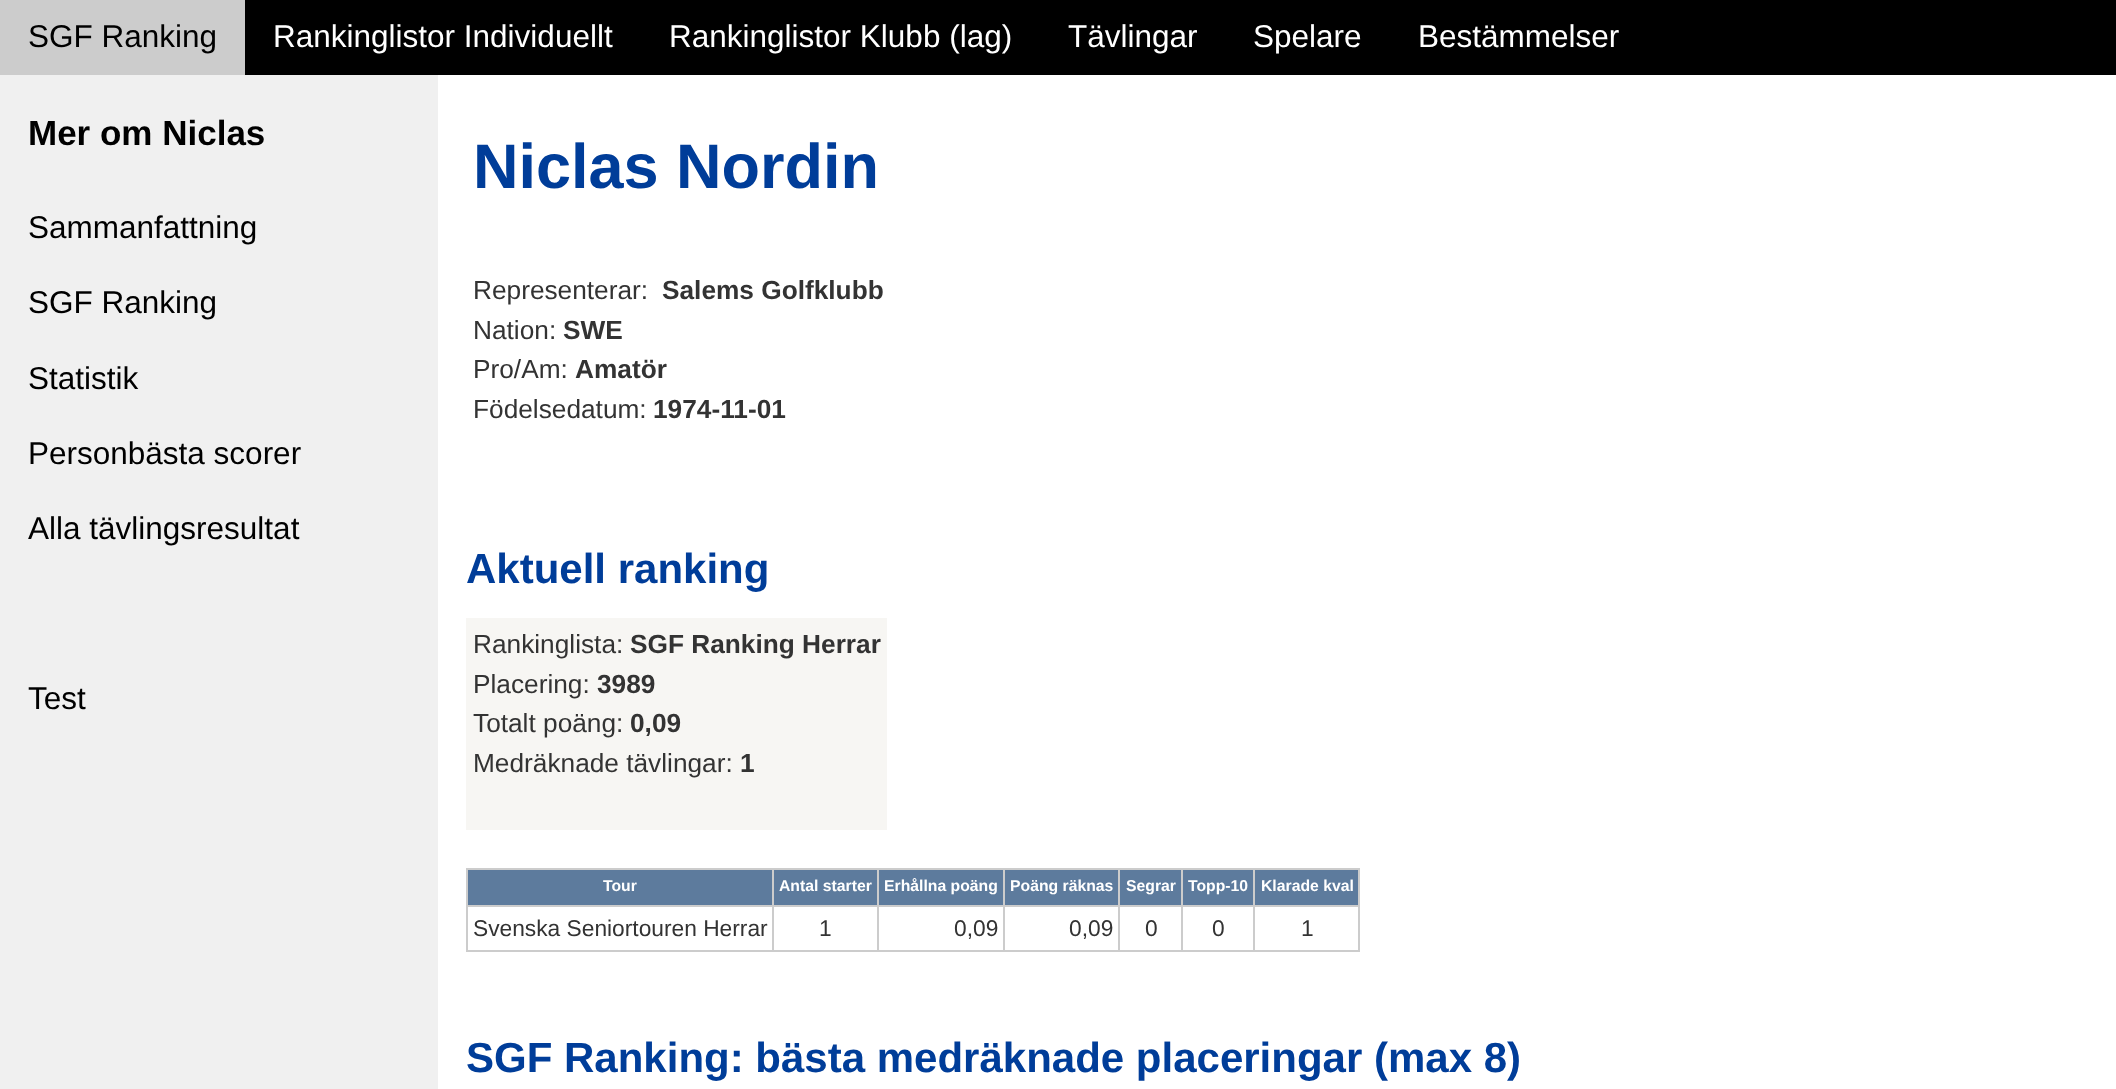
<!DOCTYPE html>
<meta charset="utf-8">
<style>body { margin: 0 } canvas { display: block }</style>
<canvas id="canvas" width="2116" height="1089"></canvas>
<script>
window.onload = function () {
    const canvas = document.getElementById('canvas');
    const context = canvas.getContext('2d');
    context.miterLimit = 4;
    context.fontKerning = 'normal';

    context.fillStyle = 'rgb(255, 255, 255)';
    context.fillRect(0, 0, 2116, 1089);
    context.fillStyle = 'rgb(0, 0, 0)';
    context.fillRect(245, 0, 1871, 75);
    context.fillStyle = 'rgb(204, 204, 204)';
    context.fillRect(0, 0, 245, 75);
    context.fillStyle = 'rgb(240, 240, 240)';
    context.fillRect(0, 75, 438, 1014);
    context.fillStyle = 'rgb(247, 246, 243)';
    context.fillRect(466, 618, 421, 212);
    context.fillStyle = 'rgb(93, 123, 157)';
    context.fillRect(468, 870, 890, 35);
    context.fillStyle = 'rgb(204, 204, 204)';
    context.fillRect(1253, 868, 107, 2);
    context.fillRect(1253, 905, 107, 2);
    context.fillRect(1358, 905, 2, 47);
    context.fillRect(1253, 950, 107, 2);
    context.fillRect(1253, 905, 2, 47);
    context.fillRect(1181, 905, 74, 2);
    context.fillRect(1253, 868, 2, 39);
    context.fillRect(1181, 868, 74, 2);
    context.fillRect(1181, 950, 74, 2);
    context.fillRect(1181, 905, 2, 47);
    context.fillRect(1118, 905, 65, 2);
    context.fillRect(1181, 868, 2, 39);
    context.fillRect(1118, 868, 65, 2);
    context.fillRect(1118, 950, 65, 2);
    context.fillRect(1118, 905, 2, 47);
    context.fillRect(1003, 905, 117, 2);
    context.fillRect(1118, 868, 2, 39);
    context.fillRect(1003, 868, 117, 2);
    context.fillRect(1003, 950, 117, 2);
    context.fillRect(1003, 905, 2, 47);
    context.fillRect(877, 905, 128, 2);
    context.fillRect(1003, 868, 2, 39);
    context.fillRect(877, 868, 128, 2);
    context.fillRect(877, 950, 128, 2);
    context.fillRect(877, 905, 2, 47);
    context.fillRect(772, 905, 107, 2);
    context.fillRect(877, 868, 2, 39);
    context.fillRect(772, 868, 107, 2);
    context.fillRect(772, 950, 107, 2);
    context.fillRect(772, 905, 2, 47);
    context.fillRect(466, 905, 308, 2);
    context.fillRect(772, 868, 2, 39);
    context.fillRect(466, 868, 308, 2);
    context.fillRect(466, 950, 308, 2);
    context.fillRect(466, 905, 2, 47);
    context.fillRect(466, 868, 2, 39);
    context.fillRect(1358, 868, 2, 39);
    context.font = '31.5px Liberation Sans';
    context.fillStyle = 'rgb(0, 0, 0)';
    context.fillText('SGF Ranking', 28, 47);
    context.fillStyle = 'rgb(255, 255, 255)';
    context.fillText('Rankinglistor Individuellt', 273, 47);
    context.fillText('Rankinglistor Klubb (lag)', 669, 47);
    context.fillText('Tävlingar', 1068, 47);
    context.fillText('Spelare', 1253, 47);
    context.fillText('Bestämmelser', 1418, 47);
    context.font = 'bold 35px Liberation Sans';
    context.fillStyle = 'rgb(0, 0, 0)';
    context.fillText('Mer om Niclas', 28, 145);
    context.font = '31.5px Liberation Sans';
    context.fillText('Sammanfattning', 28, 238);
    context.fillText('SGF Ranking', 28, 313);
    context.fillText('Statistik', 28, 389);
    context.fillText('Personbästa scorer', 28, 464);
    context.fillText('Alla tävlingsresultat', 28, 539);
    context.fillText('Test', 28, 709);
    context.font = 'bold 63px Liberation Sans';
    context.fillStyle = 'rgb(0, 61, 153)';
    context.fillText('Niclas Nordin', 473, 188);
    context.font = '26.25px Liberation Sans';
    context.fillStyle = 'rgb(51, 51, 51)';
    context.fillText('Representerar:', 473, 299);
    context.font = 'bold 26.25px Liberation Sans';
    context.fillText('Salems Golfklubb', 662, 299);
    context.font = '26.25px Liberation Sans';
    context.fillText('Nation:', 473, 339);
    context.font = 'bold 26.25px Liberation Sans';
    context.fillText('SWE', 563, 339);
    context.font = '26.25px Liberation Sans';
    context.fillText('Pro/Am:', 473, 378);
    context.font = 'bold 26.25px Liberation Sans';
    context.fillText('Amatör', 575, 378);
    context.font = '26.25px Liberation Sans';
    context.fillText('Födelsedatum:', 473, 418);
    context.font = 'bold 26.25px Liberation Sans';
    context.fillText('1974-11-01', 653, 418);
    context.font = 'bold 42px Liberation Sans';
    context.fillStyle = 'rgb(0, 61, 153)';
    context.fillText('Aktuell ranking', 466, 583);
    context.font = '26.25px Liberation Sans';
    context.fillStyle = 'rgb(51, 51, 51)';
    context.fillText('Rankinglista:', 473, 653);
    context.font = 'bold 26.25px Liberation Sans';
    context.fillText('SGF Ranking Herrar', 630, 653);
    context.font = '26.25px Liberation Sans';
    context.fillText('Placering:', 473, 693);
    context.font = 'bold 26.25px Liberation Sans';
    context.fillText('3989', 597, 693);
    context.font = '26.25px Liberation Sans';
    context.fillText('Totalt poäng:', 473, 732);
    context.font = 'bold 26.25px Liberation Sans';
    context.fillText('0,09', 630, 732);
    context.font = '26.25px Liberation Sans';
    context.fillText('Medräknade tävlingar:', 473, 772);
    context.font = 'bold 26.25px Liberation Sans';
    context.fillText('1', 740, 772);
    context.font = 'bold 15.75px Liberation Sans';
    context.fillStyle = 'rgb(255, 255, 255)';
    context.fillText('Tour', 603, 891);
    context.fillText('Antal starter', 779, 891);
    context.fillText('Erhållna poäng', 884, 891);
    context.fillText('Poäng räknas', 1010, 891);
    context.fillText('Segrar', 1126, 891);
    context.fillText('Topp-10', 1188, 891);
    context.fillText('Klarade kval', 1261, 891);
    context.font = '22.75px Liberation Sans';
    context.fillStyle = 'rgb(51, 51, 51)';
    context.fillText('Svenska Seniortouren Herrar', 473, 936);
    context.fillText('1', 819, 936);
    context.fillText('0,09', 954, 936);
    context.fillText('0,09', 1069, 936);
    context.fillText('0', 1145, 936);
    context.fillText('0', 1212, 936);
    context.fillText('1', 1301, 936);
    context.font = 'bold 42px Liberation Sans';
    context.fillStyle = 'rgb(0, 61, 153)';
    context.fillText('SGF Ranking: bästa medräknade placeringar (max 8)', 466, 1072);
};
</script>
